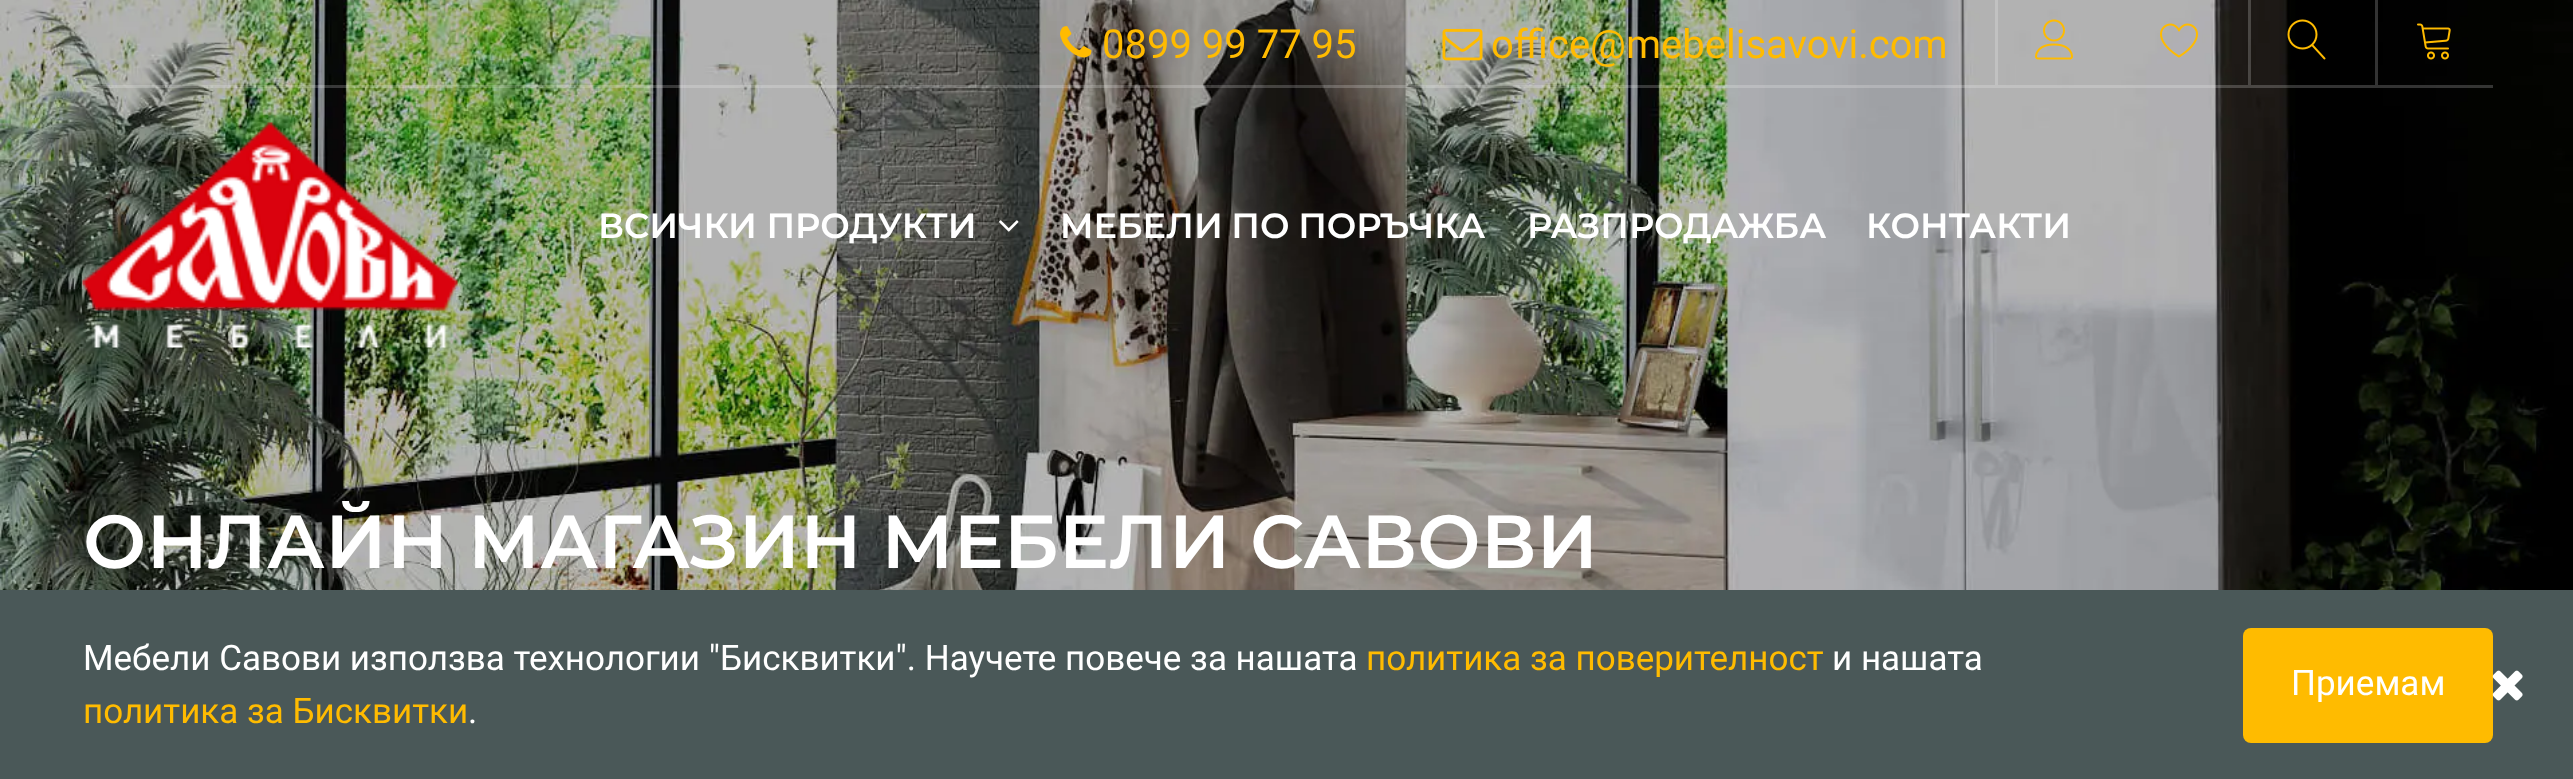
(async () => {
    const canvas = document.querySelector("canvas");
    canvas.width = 2573;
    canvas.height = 779;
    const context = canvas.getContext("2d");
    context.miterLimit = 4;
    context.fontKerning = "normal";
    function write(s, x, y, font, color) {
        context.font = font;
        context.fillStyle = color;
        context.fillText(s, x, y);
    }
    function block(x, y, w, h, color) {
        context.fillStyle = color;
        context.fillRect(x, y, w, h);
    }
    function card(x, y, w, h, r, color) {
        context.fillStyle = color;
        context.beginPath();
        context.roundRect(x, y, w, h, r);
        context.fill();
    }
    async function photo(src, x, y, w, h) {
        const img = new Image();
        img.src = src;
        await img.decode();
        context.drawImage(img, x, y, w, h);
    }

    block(0, 0, 2573, 779, "rgb(255, 255, 255)");
    await photo("media/9.png", 0, 0, 2573, 590);
    block(83, 85, 2410, 3, "rgba(255, 255, 255, 0.2)");
    await photo("media/1.png", 1060, 26, 32, 32);
    write("0899 99 77 95", 1102, 58, "40px Roboto", "rgb(255, 187, 0)");
    await photo("media/2.png", 1442, 28, 41, 33);
    write("office@mebelisavovi.com", 1491, 58, "40px Roboto", "rgb(255, 187, 0)");
    block(1995, 0, 3, 85, "rgb(193, 193, 193)");
    await photo("media/3.png", 2035, 19, 38, 41);
    await photo("media/4.png", 2160, 23, 38, 35);
    block(2248, 0, 3, 85, "rgba(255, 255, 255, 0.2)");
    await photo("media/5.png", 2287, 19, 39, 41);
    block(2375, 0, 3, 85, "rgb(51, 51, 51)");
    await photo("media/6.png", 2417, 23, 34, 37);
    await photo("media/7.png", 82, 122, 376, 226);
    write("ВСИЧКИ ПРОДУКТИ", 598, 238, "600 35px Montserrat", "rgb(255, 255, 255)");
    await photo("media/8.png", 999, 220, 20, 12);
    context.wordSpacing = "-1px";
    write("MЕБЕЛИ ПО ПОРЪЧКА", 1060, 238, "600 35px Montserrat", "rgb(255, 255, 255)");
    context.wordSpacing = "0px";
    write("РАЗПРОДАЖБА", 1527, 238, "600 35px Montserrat", "rgb(255, 255, 255)");
    write("КОНТАКТИ", 1866, 238, "600 35px Montserrat", "rgb(255, 255, 255)");
    context.wordSpacing = "-1px";
    write("ОНЛАЙН МАГАЗИН МЕБЕЛИ САВОВИ", 83, 568, "600 75px Montserrat", "rgb(255, 255, 255)");
    block(0, 590, 2573, 189, "rgb(74, 88, 88)");
    context.wordSpacing = "0px";
    write("Мебели Савови използва технологии \"Бисквитки\". Научете повече за нашата", 83, 670, "35px Roboto", "rgb(255, 255, 255)");
    write("политика за поверителност", 1366, 670, "35px Roboto", "rgb(255, 187, 0)");
    write("и нашата", 1832, 670, "35px Roboto", "rgb(255, 255, 255)");
    write("политика за Бисквитки", 83, 723, "35px Roboto", "rgb(255, 187, 0)");
    write(".", 468, 723, "35px Roboto", "rgb(255, 255, 255)");
    card(2243, 628, 250, 115, 8, "rgb(255, 187, 0)");
    write("Приемам", 2291, 695, "35px Roboto", "rgb(255, 255, 255)");
    await photo("media/10.png", 2492, 670, 31, 31);
})();
